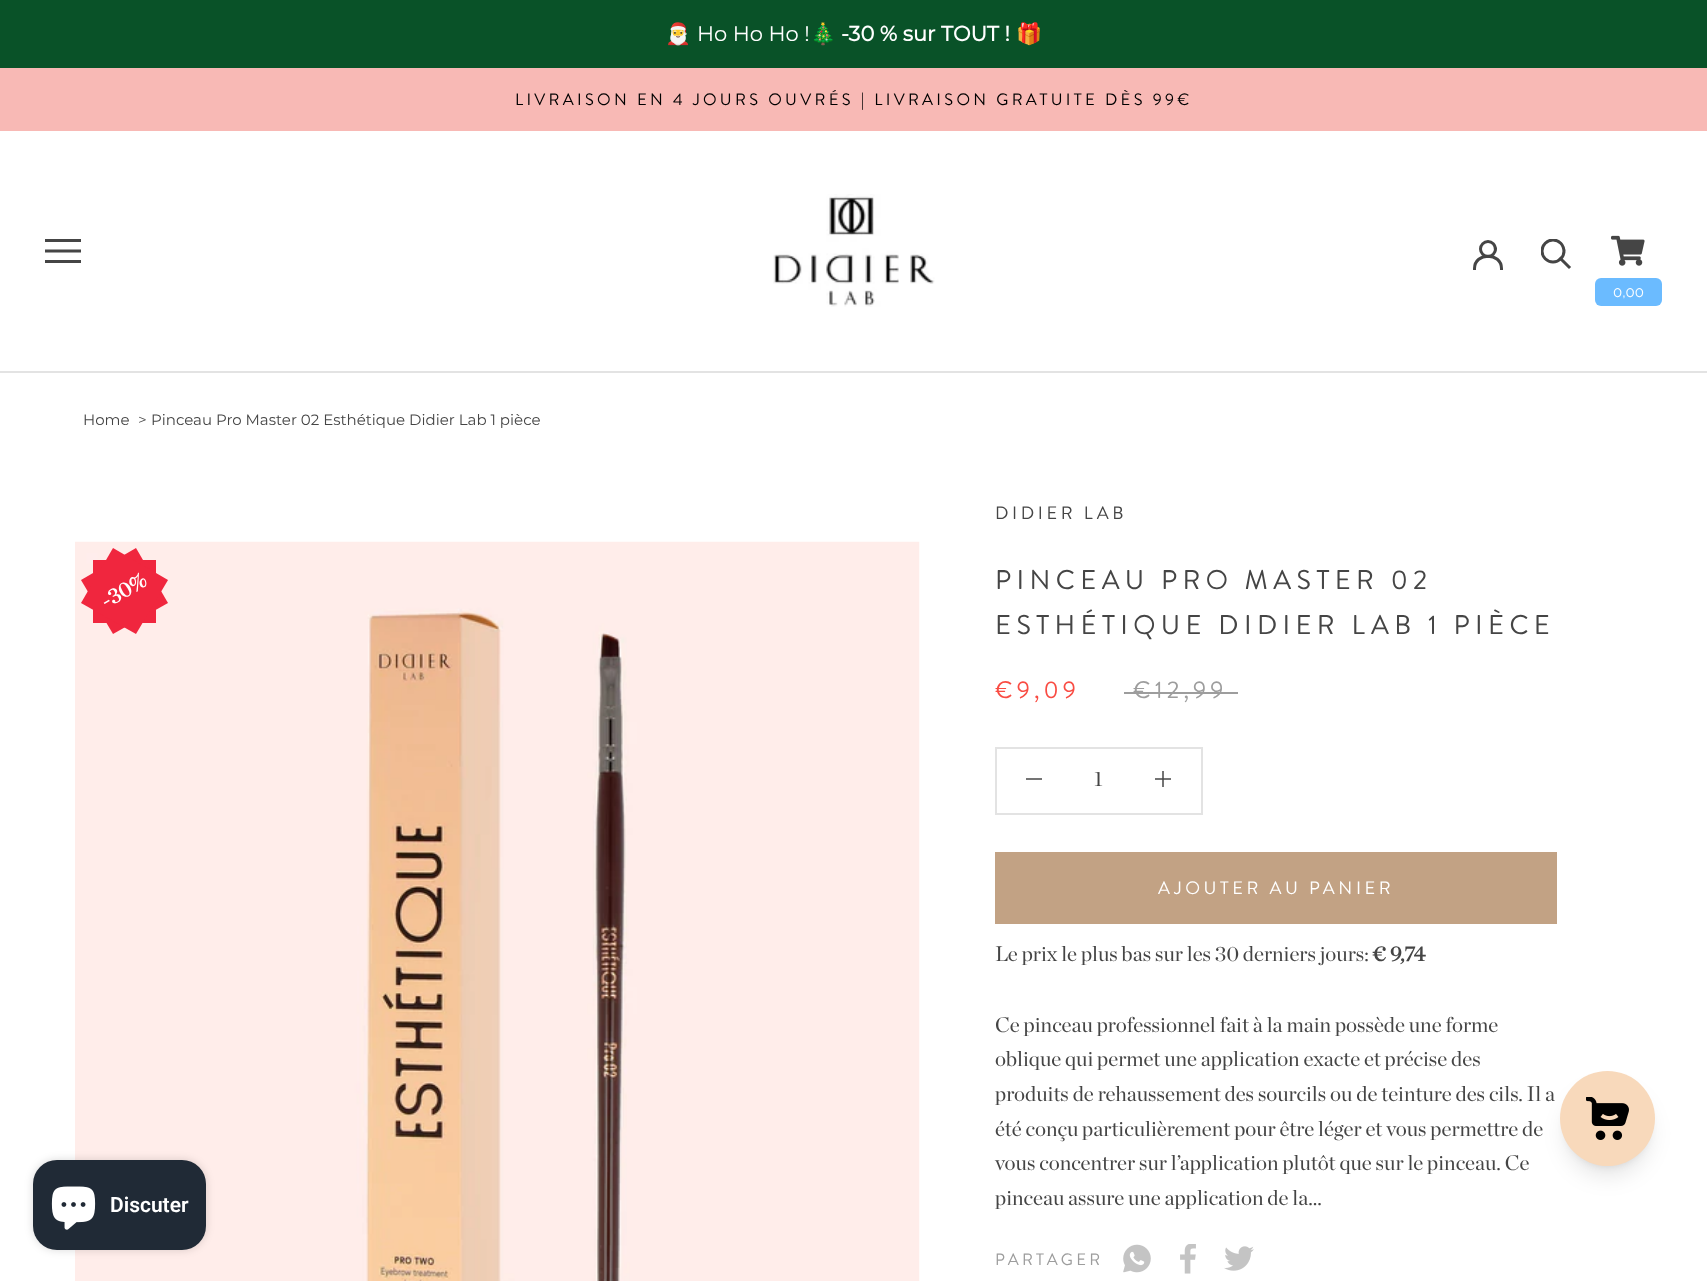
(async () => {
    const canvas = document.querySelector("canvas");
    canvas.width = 1707;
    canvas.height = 1281;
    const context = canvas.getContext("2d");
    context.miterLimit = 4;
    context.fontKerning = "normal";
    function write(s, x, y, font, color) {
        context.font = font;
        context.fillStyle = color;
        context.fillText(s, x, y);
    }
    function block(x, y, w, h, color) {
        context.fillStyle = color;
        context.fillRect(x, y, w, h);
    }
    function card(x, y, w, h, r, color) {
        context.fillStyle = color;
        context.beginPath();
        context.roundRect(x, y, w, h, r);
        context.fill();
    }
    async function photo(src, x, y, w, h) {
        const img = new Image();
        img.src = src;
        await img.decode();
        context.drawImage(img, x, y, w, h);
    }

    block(0, 0, 1707, 1281, "rgb(255, 255, 255)");
    block(1155, 778, 16, 2, "rgb(116, 116, 116)");
    block(0, 0, 1707, 68, "rgb(9, 82, 40)");
    write("🎅", 665, 41, "21px Noto Color Emoji", "rgb(255, 255, 255)");
    write("Ho Ho Ho !", 697, 41, "100 21px Montserrat", "rgb(255, 255, 255)");
    write("🎄", 810, 41, "21px Noto Color Emoji", "rgb(255, 255, 255)");
    write("-30 % sur TOUT !", 841, 41, "bold 21px Montserrat", "rgb(255, 255, 255)");
    write("🎁", 1016, 41, "bold 21px Noto Color Emoji", "rgb(255, 255, 255)");
    block(0, 68, 1707, 63, "rgb(248, 185, 181)");
    context.letterSpacing = "3.3px";
    write("LIVRAISON EN 4 JOURS OUVRÉS | LIVRAISON GRATUITE DÈS 99€", 515, 105, "16.5px Brandon Grotesque", "rgb(0, 0, 0)");
    block(0, 371, 1707, 2, "rgb(227, 227, 227)");
    context.fillStyle = "rgb(69, 69, 69)";
    context.beginPath();
    context.moveTo(45, 263);
    context.lineTo(45, 260);
    context.lineTo(81, 260);
    context.lineTo(81, 263);
    context.closePath();
    context.moveTo(45, 249.5);
    context.lineTo(81, 249.5);
    context.lineTo(81, 252.5);
    context.lineTo(45, 252.5);
    context.closePath();
    context.moveTo(45, 239);
    context.lineTo(81, 239);
    context.lineTo(81, 242);
    context.lineTo(45, 242);
    context.closePath();
    context.fill();
    await photo("media/1.png", 773, 194, 162, 113);
    context.beginPath();
    context.moveTo(1474.5, 268.5);
    context.bezierCurveTo(1474.5, 252, 1501.5, 252, 1501.5, 268.5);
    context.strokeStyle = "rgb(69, 69, 69)";
    context.lineWidth = 3;
    context.lineCap = "square";
    context.stroke();
    context.beginPath();
    context.arc(1488, 249, 7.5, 0, Math.PI * 2);
    context.stroke();
    context.beginPath();
    context.moveTo(1569, 267);
    context.lineTo(1560.5, 258.5);
    context.stroke();
    context.save();
    context.beginPath();
    context.rect(1541, 239, 31, 31);
    context.clip();
    context.beginPath();
    context.arc(1553, 251, 11, 0, Math.PI * 2);
    context.stroke();
    context.restore();
    await photo("media/2.png", 1611, 235, 34, 31);
    card(1595, 278, 67, 28, 6, "rgb(107, 187, 255)");
    context.letterSpacing = "0px";
    write("0,00", 1613, 297, "15px Raleway", "rgb(255, 255, 255)");
    write("Home", 83, 425, "100 15px Montserrat", "rgb(69, 69, 69)");
    write(">", 138, 425, "100 15px Montserrat", "rgb(69, 69, 69)");
    write("Pinceau Pro Master 02 Esthétique Didier Lab 1 pièce", 151, 425, "100 15px Montserrat", "rgb(69, 69, 69)");
    await photo("media/3.png", 75, 541, 845, 740);
    context.fillStyle = "rgb(240, 38, 62)";
    context.beginPath();
    context.moveTo(81, 580);
    context.lineTo(136, 548);
    context.lineTo(168, 603);
    context.lineTo(113, 634);
    context.closePath();
    context.fill();
    block(93, 560, 63, 63, "rgb(240, 38, 62)");
    context.beginPath();
    context.moveTo(81, 603);
    context.lineTo(113, 548);
    context.lineTo(168, 580);
    context.lineTo(136, 634);
    context.closePath();
    context.fill();
    context.font = "bold 21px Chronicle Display";
    context.fillStyle = "rgb(255, 255, 255)";
    context.save();
    context.translate(106, 609);
    context.rotate(-30 * Math.PI / 180);
    context.fillText("-", 0, 0);
    context.restore();
    context.save();
    context.translate(113, 605);
    context.rotate(-30 * Math.PI / 180);
    context.fillText("30%", 0, 0);
    context.restore();
    context.letterSpacing = "3.6px";
    write("DIDIER LAB", 995, 519, "18px Brandon Grotesque", "rgb(69, 69, 69)");
    context.letterSpacing = "5.4px";
    write("PINCEAU PRO MASTER 02", 995, 589, "27px Brandon Grotesque", "rgb(69, 69, 69)");
    write("ESTHÉTIQUE DIDIER LAB 1 PIÈCE", 995, 634, "27px Brandon Grotesque", "rgb(69, 69, 69)");
    context.letterSpacing = "4.25px";
    write("€9,09", 995, 698, "24px Brandon Grotesque", "rgb(249, 76, 67)");
    write("€12,99", 1133, 698, "24px Brandon Grotesque", "rgb(157, 157, 157)");
    block(1124, 692, 114, 2, "rgb(157, 157, 157)");
    context.strokeStyle = "rgb(227, 227, 227)";
    context.lineWidth = 2;
    context.strokeRect(996, 748, 206, 66);
    block(1026, 778, 16, 2, "rgb(116, 116, 116)");
    context.letterSpacing = "0px";
    write("1", 1094, 786, "21px Chronicle Display", "rgb(69, 69, 69)");
    block(1162, 771, 2, 16, "rgb(116, 116, 116)");
    block(1162, 778, 2, 2, "rgb(81, 81, 81)");
    context.strokeStyle = "rgb(194, 162, 132)";
    context.strokeRect(996, 853, 560, 70);
    block(997, 854, 558, 68, "rgb(194, 162, 132)");
    context.letterSpacing = "3.6px";
    write("AJOUTER AU PANIER", 1158, 894, "18px Brandon Grotesque", "rgb(255, 255, 255)");
    context.letterSpacing = "0px";
    write("Le prix le plus bas sur les 30 derniers jours:", 995, 961, "21px Chronicle Display", "rgb(69, 69, 69)");
    write("€ 9,74", 1372, 961, "bold 21px Chronicle Display", "rgb(69, 69, 69)");
    write("Ce pinceau professionnel fait à la main possède une forme", 995, 1032, "21px Chronicle Display", "rgb(69, 69, 69)");
    write("oblique qui permet une application exacte et précise des", 995, 1066, "21px Chronicle Display", "rgb(69, 69, 69)");
    write("produits de rehaussement des sourcils ou de teinture des cils. Il a", 995, 1101, "21px Chronicle Display", "rgb(69, 69, 69)");
    write("été conçu particulièrement pour être léger et vous permettre de", 995, 1136, "21px Chronicle Display", "rgb(69, 69, 69)");
    write("vous concentrer sur l’application plutôt que sur le pinceau. Ce", 995, 1170, "21px Chronicle Display", "rgb(69, 69, 69)");
    write("pinceau assure une application de la...", 995, 1205, "21px Chronicle Display", "rgb(69, 69, 69)");
    context.letterSpacing = "3.3px";
    write("PARTAGER", 995, 1265, "16.5px Brandon Grotesque", "rgb(157, 157, 157)");
    await photo("media/4.png", 1123, 1244, 28, 29);
    await photo("media/5.png", 1180, 1244, 16, 30);
    await photo("media/6.png", 1224, 1246, 30, 25);
    context.fillStyle = "rgba(0, 0, 0, 0.15)";
    context.filter = "blur(4px)";
    context.beginPath();
    context.roundRect(33, 1160, 173, 90, 24);
    context.fill();
    context.filter = "none";
    card(33, 1160, 173, 90, 24, "rgb(32, 42, 54)");
    await photo("media/7.png", 51, 1186, 45, 44);
    context.letterSpacing = "0px";
    write("Discuter", 110, 1212, "600 21px Roboto", "rgb(255, 255, 255)");
    context.fillStyle = "rgba(0, 0, 0, 0.1)";
    context.filter = "blur(4.5px)";
    context.beginPath();
    context.roundRect(1566, 1083, 83, 83, 41.5);
    context.fill();
    context.filter = "none";
    context.filter = "blur(11px)";
    context.beginPath();
    context.roundRect(1565, 1091, 85, 85, 42.5);
    context.fill();
    context.filter = "none";
    context.fillStyle = "rgb(248, 217, 187)";
    context.beginPath();
    context.arc(1607.5, 1118.5, 47.5, 0, Math.PI * 2);
    context.fill();
    await photo("media/8.png", 1586, 1097, 43, 43);
})();
